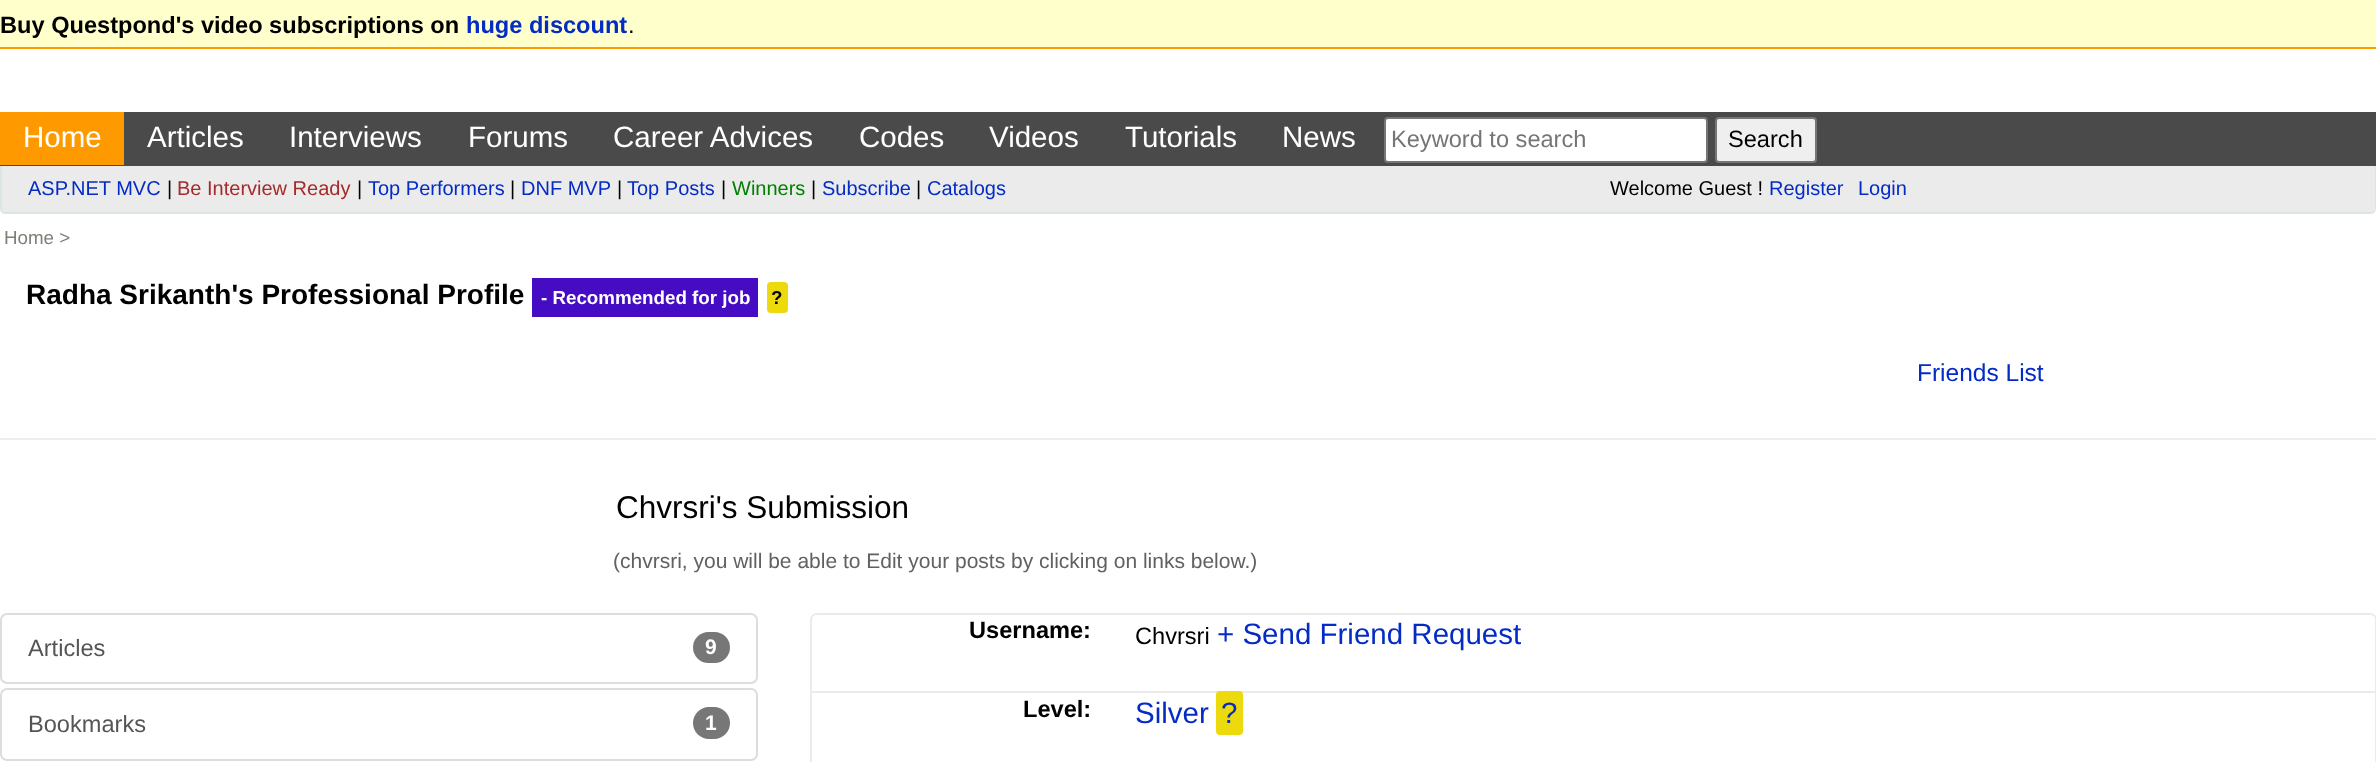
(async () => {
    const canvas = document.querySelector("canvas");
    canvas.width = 2376;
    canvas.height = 762;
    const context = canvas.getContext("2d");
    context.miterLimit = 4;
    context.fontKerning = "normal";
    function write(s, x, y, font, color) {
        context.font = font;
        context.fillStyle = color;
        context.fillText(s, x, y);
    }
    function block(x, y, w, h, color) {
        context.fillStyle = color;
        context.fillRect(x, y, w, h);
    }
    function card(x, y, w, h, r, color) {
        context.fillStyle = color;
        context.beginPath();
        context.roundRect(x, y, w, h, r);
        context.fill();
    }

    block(0, 0, 2376, 762, "rgb(255, 255, 255)");
    block(0, 0, 2376, 47, "rgb(255, 255, 204)");
    block(0, 47, 2376, 2, "rgb(255, 153, 0)");
    write("Buy Questpond's video subscriptions on", 0, 33, "bold 23.6px Liberation Sans", "rgb(0, 0, 0)");
    write("huge discount", 466, 33, "bold 23.6px Liberation Sans", "rgb(4, 43, 196)");
    write(".", 628, 33, "23.6px Liberation Sans", "rgb(0, 0, 0)");
    block(0, 112, 2376, 54, "rgb(74, 74, 74)");
    block(0, 112, 124, 53, "rgb(255, 153, 0)");
    write("Home", 23, 147, "29.5px Liberation Sans", "rgb(255, 255, 255)");
    write("Articles", 147, 147, "29.5px Liberation Sans", "rgb(255, 255, 255)");
    write("Interviews", 289, 147, "29.5px Liberation Sans", "rgb(255, 255, 255)");
    write("Forums", 468, 147, "29.5px Liberation Sans", "rgb(255, 255, 255)");
    write("Career Advices", 613, 147, "29.5px Liberation Sans", "rgb(255, 255, 255)");
    write("Codes", 859, 147, "29.5px Liberation Sans", "rgb(255, 255, 255)");
    write("Videos", 989, 147, "29.5px Liberation Sans", "rgb(255, 255, 255)");
    write("Tutorials", 1125, 147, "29.5px Liberation Sans", "rgb(255, 255, 255)");
    write("News", 1282, 147, "29.5px Liberation Sans", "rgb(255, 255, 255)");
    context.beginPath();
    context.roundRect(1385, 118, 322, 44, 3);
    context.fill();
    context.strokeStyle = "rgb(118, 118, 118)";
    context.lineWidth = 2;
    context.stroke();
    write("Keyword to search", 1391, 147, "23.6px Liberation Sans", "rgb(117, 117, 117)");
    context.fillStyle = "rgb(239, 239, 239)";
    context.beginPath();
    context.roundRect(1716, 118, 100, 44, 3);
    context.fill();
    context.stroke();
    write("Search", 1728, 147, "23.6px Liberation Sans", "rgb(0, 0, 0)");
    context.fillStyle = "rgb(235, 235, 235)";
    context.beginPath();
    context.roundRect(2, 166, 2373, 46, [0, 0, 4, 4]);
    context.fill();
    context.fillStyle = "rgb(219, 229, 230)";
    context.beginPath();
    context.moveTo(0, 166);
    context.lineTo(2376, 166);
    context.lineTo(2376, 208);
    context.bezierCurveTo(2376, 211, 2374, 214, 2371, 214);
    context.lineTo(5, 214);
    context.bezierCurveTo(2, 214, 0, 211, 0, 208);
    context.closePath();
    context.moveTo(2, 166);
    context.lineTo(2375, 166);
    context.lineTo(2375, 208);
    context.bezierCurveTo(2375, 210, 2373, 212, 2371, 212);
    context.lineTo(5, 212);
    context.bezierCurveTo(3, 212, 2, 210, 2, 208);
    context.closePath();
    context.fill("evenodd");
    write("ASP.NET MVC", 28, 195, "20px Liberation Sans", "rgb(4, 43, 196)");
    write("|", 167, 195, "20px Liberation Sans", "rgb(0, 0, 0)");
    write("Be Interview Ready", 177, 195, "20px Liberation Sans", "rgb(165, 42, 42)");
    write("|", 357, 195, "20px Liberation Sans", "rgb(0, 0, 0)");
    write("Top Performers", 368, 195, "20px Liberation Sans", "rgb(4, 43, 196)");
    write("|", 510, 195, "20px Liberation Sans", "rgb(0, 0, 0)");
    write("DNF MVP", 521, 195, "20px Liberation Sans", "rgb(4, 43, 196)");
    write("|", 617, 195, "20px Liberation Sans", "rgb(0, 0, 0)");
    write("Top Posts", 627, 195, "20px Liberation Sans", "rgb(4, 43, 196)");
    write("|", 721, 195, "20px Liberation Sans", "rgb(0, 0, 0)");
    write("Winners", 732, 195, "20px Liberation Sans", "rgb(0, 128, 0)");
    write("|", 811, 195, "20px Liberation Sans", "rgb(0, 0, 0)");
    write("Subscribe", 822, 195, "20px Liberation Sans", "rgb(4, 43, 196)");
    write("|", 916, 195, "20px Liberation Sans", "rgb(0, 0, 0)");
    write("Catalogs", 927, 195, "20px Liberation Sans", "rgb(4, 43, 196)");
    write("Welcome Guest !", 1610, 195, "20px Liberation Sans", "rgb(0, 0, 0)");
    write("Register", 1769, 195, "20px Liberation Sans", "rgb(4, 43, 196)");
    write("Login", 1858, 195, "20px Liberation Sans", "rgb(4, 43, 196)");
    write("Home >", 4, 244, "18.75px Liberation Sans", "rgb(126, 126, 118)");
    write("Radha Srikanth's Professional Profile", 26, 304, "bold 28px Liberation Sans", "rgb(0, 0, 0)");
    block(532, 278, 226, 39, "rgb(70, 12, 196)");
    write("- Recommended for job", 541, 304, "bold 18.75px Liberation Sans", "rgb(255, 255, 255)");
    card(767, 282, 21, 31, 4, "rgb(237, 218, 12)");
    write("?", 771, 304, "bold 18.75px Liberation Sans", "rgb(0, 0, 0)");
    write("Friends List", 1917, 381, "24.5px Liberation Sans", "rgb(4, 43, 196)");
    block(0, 438, 2376, 2, "rgb(238, 238, 238)");
    write("Chvrsri's Submission", 616, 518, "31.5px Liberation Sans", "rgb(0, 0, 0)");
    write("(chvrsri, you will be able to Edit your posts by clicking on links below.)", 613, 568, "21px Liberation Sans", "rgb(96, 97, 98)");
    context.beginPath();
    context.roundRect(1, 614, 756, 69, 6);
    context.strokeStyle = "rgb(221, 221, 221)";
    context.stroke();
    write("Articles", 28, 656, "23.6px Liberation Sans", "rgb(85, 85, 85)");
    card(693, 632, 37, 31, 15.5, "rgb(119, 119, 119)");
    write("9", 705, 654, "bold 21px Liberation Sans", "rgb(255, 255, 255)");
    context.beginPath();
    context.roundRect(1, 689, 756, 71, 6);
    context.stroke();
    write("Bookmarks", 28, 732, "23.6px Liberation Sans", "rgb(85, 85, 85)");
    card(693, 707, 37, 32, 16, "rgb(119, 119, 119)");
    write("1", 705, 730, "bold 21px Liberation Sans", "rgb(255, 255, 255)");
    context.beginPath();
    context.moveTo(817, 614);
    context.lineTo(2370, 614);
    context.bezierCurveTo(2373.5, 614, 2376, 616.5, 2376, 620);
    context.lineTo(2376, 692);
    context.lineTo(811, 692);
    context.lineTo(811, 620);
    context.bezierCurveTo(811, 616.5, 813.5, 614, 817, 614);
    context.closePath();
    context.strokeStyle = "rgb(235, 235, 235)";
    context.stroke();
    write("Username:", 969, 638, "bold 23.6px Liberation Sans", "rgb(0, 0, 0)");
    write("Chvrsri", 1135, 644, "23.6px Liberation Sans", "rgb(0, 0, 0)");
    write("+ Send Friend Request", 1217, 644, "29.5px Liberation Sans", "rgb(4, 43, 196)");
    context.strokeRect(811, 692, 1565, 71);
    write("Level:", 1023, 717, "bold 23.6px Liberation Sans", "rgb(0, 0, 0)");
    write("Silver", 1135, 723, "29.5px Liberation Sans", "rgb(4, 43, 196)");
    card(1216, 691, 27, 44, 4, "rgb(237, 218, 12)");
    write("?", 1221, 723, "29.5px Liberation Sans", "rgb(4, 43, 196)");
})();
